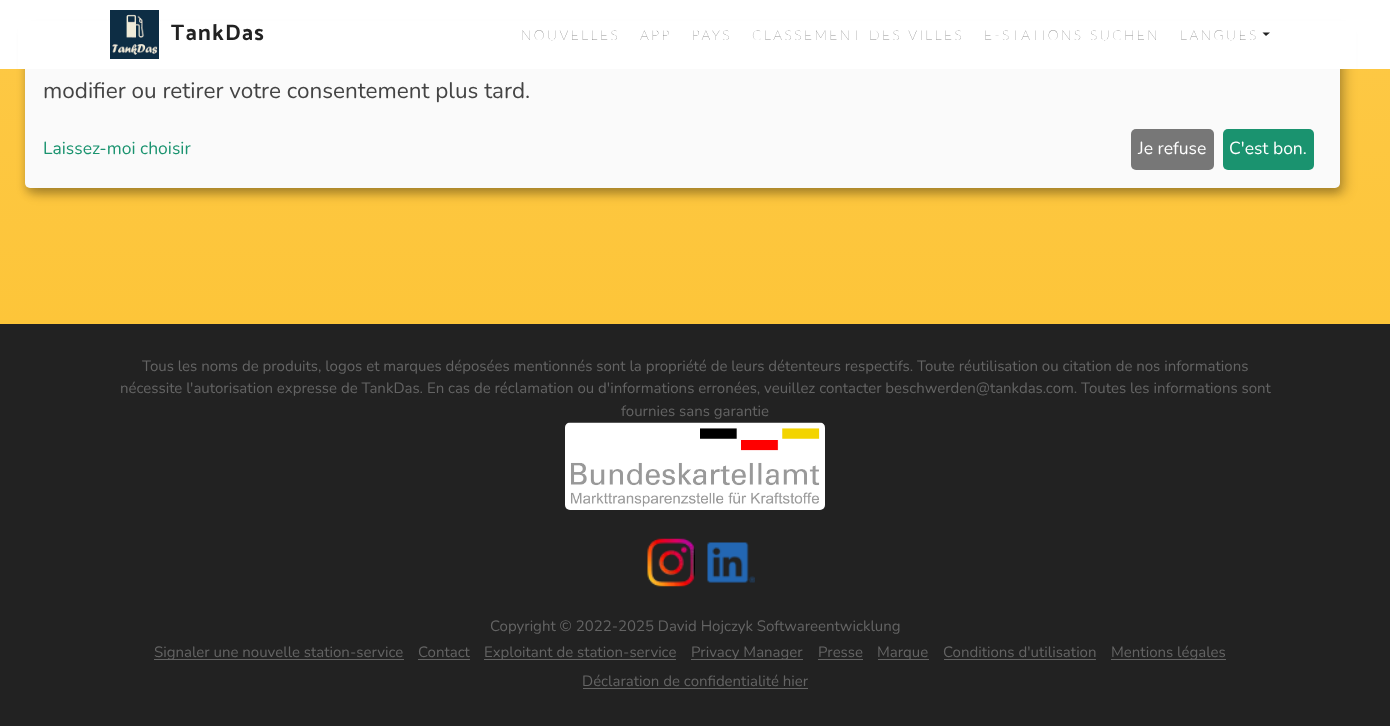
(async () => {
    const canvas = document.querySelector("canvas");
    canvas.width = 1390;
    canvas.height = 726;
    const context = canvas.getContext("2d");
    context.miterLimit = 4;
    context.fontKerning = "normal";
    function write(s, x, y, font, color) {
        context.font = font;
        context.fillStyle = color;
        context.fillText(s, x, y);
    }
    function block(x, y, w, h, color) {
        context.fillStyle = color;
        context.fillRect(x, y, w, h);
    }
    function card(x, y, w, h, r, color) {
        context.fillStyle = color;
        context.beginPath();
        context.roundRect(x, y, w, h, r);
        context.fill();
    }
    async function photo(src, x, y, w, h) {
        const img = new Image();
        img.src = src;
        await img.decode();
        context.drawImage(img, x, y, w, h);
    }
    let gradient;

    block(0, 0, 1390, 726, "rgb(255, 255, 255)");
    gradient = context.createLinearGradient(695, -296, 695, 324);
    gradient.addColorStop(0, "rgb(253, 204, 82)");
    gradient.addColorStop(1, "rgb(253, 197, 57)");
    context.fillStyle = gradient;
    context.fillRect(0, 69, 1390, 255);
    context.fillStyle = "rgba(0, 0, 0, 0.19)";
    context.filter = "blur(6px)";
    context.beginPath();
    context.roundRect(31, 31, 1315, 163, 5);
    context.fill();
    context.filter = "none";
    context.fillStyle = "rgba(0, 0, 0, 0.2)";
    context.filter = "blur(4px)";
    context.beginPath();
    context.roundRect(25, 30, 1315, 163, 5);
    context.fill();
    context.filter = "none";
    card(25, 25, 1315, 163, 5, "rgb(250, 250, 250)");
    block(18, 21, 1338, 48, "rgb(255, 255, 255)");
    await photo("media/1.png", 110, 10, 49, 49);
    context.letterSpacing = "1.25px";
    write("TankDas", 171, 40, "bold 22.5px Catamaran", "rgb(34, 34, 34)");
    context.letterSpacing = "2.5px";
    write("NOUVELLES", 521, 40, "200 13.75px Lato", "rgb(34, 34, 34)");
    write("APP", 640, 40, "200 13.75px Lato", "rgb(34, 34, 34)");
    write("PAYS", 692, 40, "200 13.75px Lato", "rgb(34, 34, 34)");
    write("CLASSEMENT DES VILLES", 752, 40, "200 13.75px Lato", "rgb(34, 34, 34)");
    write("E-STATIONS SUCHEN", 984, 40, "200 13.75px Lato", "rgb(34, 34, 34)");
    write("LANGUES", 1180, 40, "200 13.75px Lato", "rgb(34, 34, 34)");
    context.beginPath();
    context.moveTo(1262.5, 32.5);
    context.lineTo(1270, 32.5);
    context.lineTo(1266, 36);
    context.closePath();
    context.fill();
    context.letterSpacing = "0px";
    write("modifier ou retirer votre consentement plus tard.", 43, 98, "200 22.5px Nunito", "rgb(68, 68, 68)");
    write("Laissez-moi choisir", 43, 154, "200 17.5px Nunito", "rgb(26, 147, 111)");
    card(1131, 129, 83, 41, 5, "rgb(119, 119, 119)");
    write("Je refuse", 1138, 154, "200 17.5px Nunito", "rgb(255, 255, 255)");
    card(1223, 129, 91, 41, 5, "rgb(26, 147, 111)");
    write("C'est bon.", 1229, 154, "200 17.5px Nunito", "rgb(255, 255, 255)");
    block(0, 324, 1390, 402, "rgb(34, 34, 34)");
    write("Tous les noms de produits, logos et marques déposées mentionnés sont la propriété de leurs détenteurs respectifs. Toute réutilisation ou citation de nos informations", 142, 371, "200 15px Nunito", "rgb(100, 100, 100)");
    write("nécessite l'autorisation expresse de TankDas. En cas de réclamation ou d'informations erronées, veuillez contacter beschwerden@tankdas.com. Toutes les informations sont", 120, 393, "200 15px Nunito", "rgb(100, 100, 100)");
    write("fournies sans garantie", 621, 416, "200 15px Nunito", "rgb(100, 100, 100)");
    await photo("media/2.png", 565, 422, 260, 88);
    await photo("media/3.png", 647, 538, 48, 49);
    await photo("media/4.png", 707, 542, 48, 41);
    write("Copyright © 2022-2025 David Hojczyk Softwareentwicklung", 490, 631, "200 15px Nunito", "rgb(100, 100, 100)");
    block(154, 659, 250, 1, "rgb(100, 100, 100)");
    write("Signaler une nouvelle station-service", 154, 657, "200 15px Nunito", "rgb(100, 100, 100)");
    write("Contact", 418, 657, "200 15px Nunito", "rgb(100, 100, 100)");
    block(418, 659, 52, 1, "rgb(100, 100, 100)");
    block(484, 659, 192, 1, "rgb(100, 100, 100)");
    write("Exploitant de station-service", 484, 657, "200 15px Nunito", "rgb(100, 100, 100)");
    block(691, 659, 112, 1, "rgb(100, 100, 100)");
    write("Privacy Manager", 691, 657, "200 15px Nunito", "rgb(100, 100, 100)");
    write("Presse", 818, 657, "200 15px Nunito", "rgb(100, 100, 100)");
    block(818, 659, 45, 1, "rgb(100, 100, 100)");
    block(878, 659, 51, 1, "rgb(100, 100, 100)");
    write("Marque", 877, 657, "200 15px Nunito", "rgb(100, 100, 100)");
    write("Conditions d'utilisation", 943, 657, "200 15px Nunito", "rgb(100, 100, 100)");
    block(944, 659, 152, 1, "rgb(100, 100, 100)");
    block(1111, 659, 115, 1, "rgb(100, 100, 100)");
    write("Mentions légales", 1111, 657, "200 15px Nunito", "rgb(100, 100, 100)");
    write("Déclaration de confidentialité hier", 582, 686, "200 15px Nunito", "rgb(100, 100, 100)");
    block(583, 688, 225, 1, "rgb(100, 100, 100)");
})();
